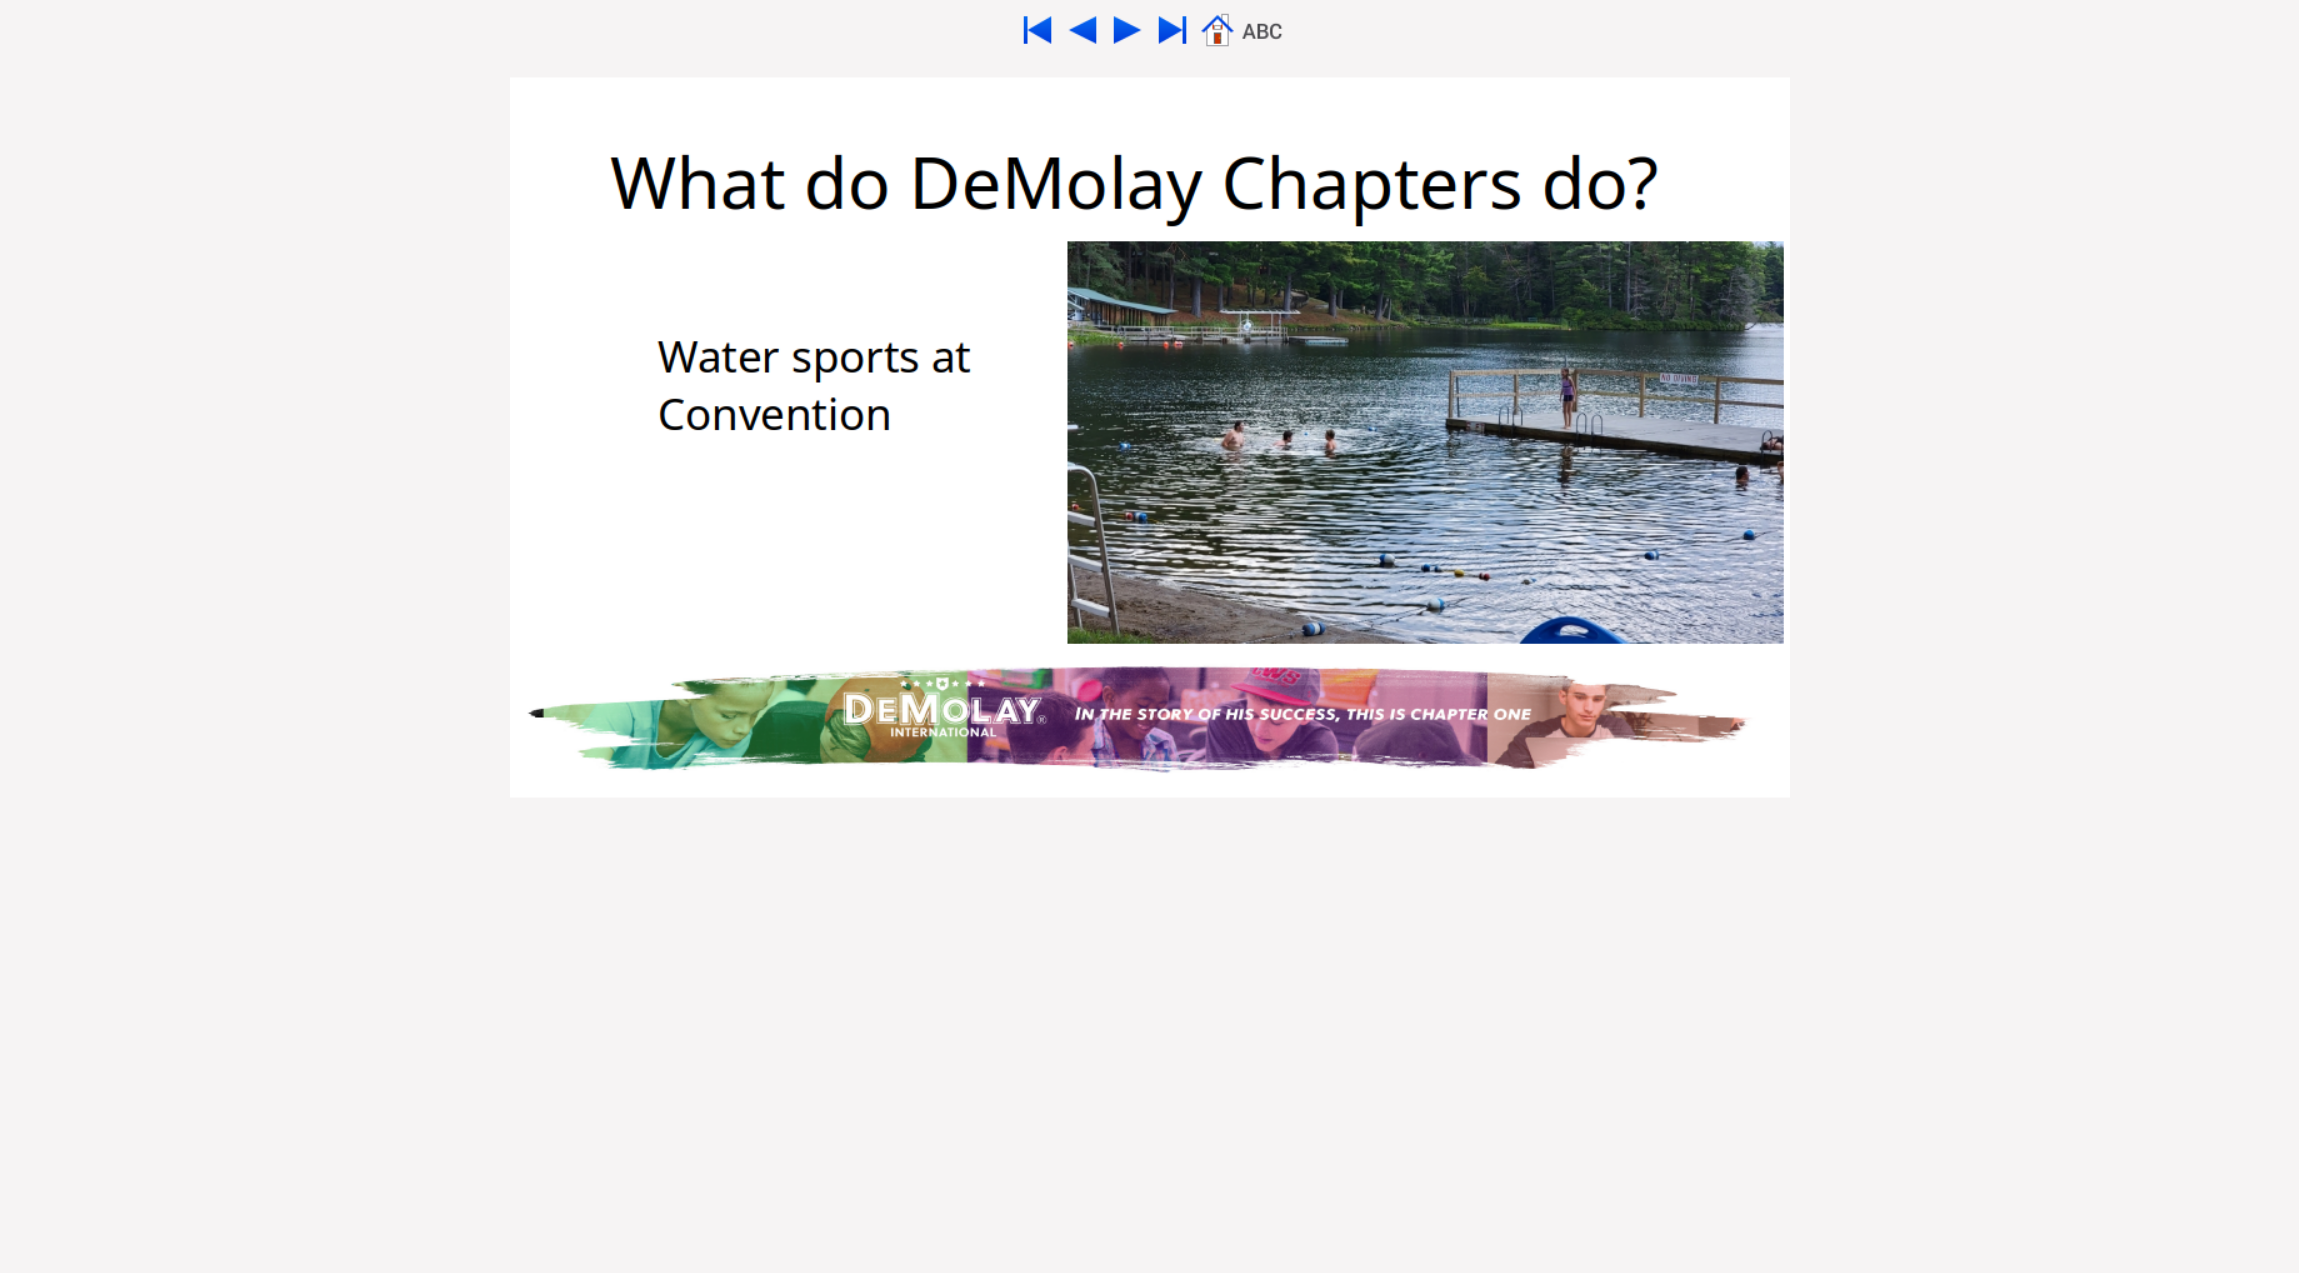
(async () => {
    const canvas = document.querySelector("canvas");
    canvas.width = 2299;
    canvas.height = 1273;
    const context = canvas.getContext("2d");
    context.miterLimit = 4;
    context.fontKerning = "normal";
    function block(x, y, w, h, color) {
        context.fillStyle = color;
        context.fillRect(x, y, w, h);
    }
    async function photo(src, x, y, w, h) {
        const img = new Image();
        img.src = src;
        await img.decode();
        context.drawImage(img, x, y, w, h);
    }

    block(0, 0, 2299, 1273, "rgb(246, 244, 244)");
    await photo("media/1.png", 1023, 16, 29, 28);
    await photo("media/2.png", 1068, 16, 29, 28);
    await photo("media/3.png", 1113, 16, 29, 28);
    await photo("media/4.png", 1158, 16, 29, 28);
    await photo("media/5.png", 1201, 13, 33, 34);
    await photo("media/6.png", 1242, 22, 41, 18);
    await photo("media/7.png", 510, 77, 1280, 721);
})();
